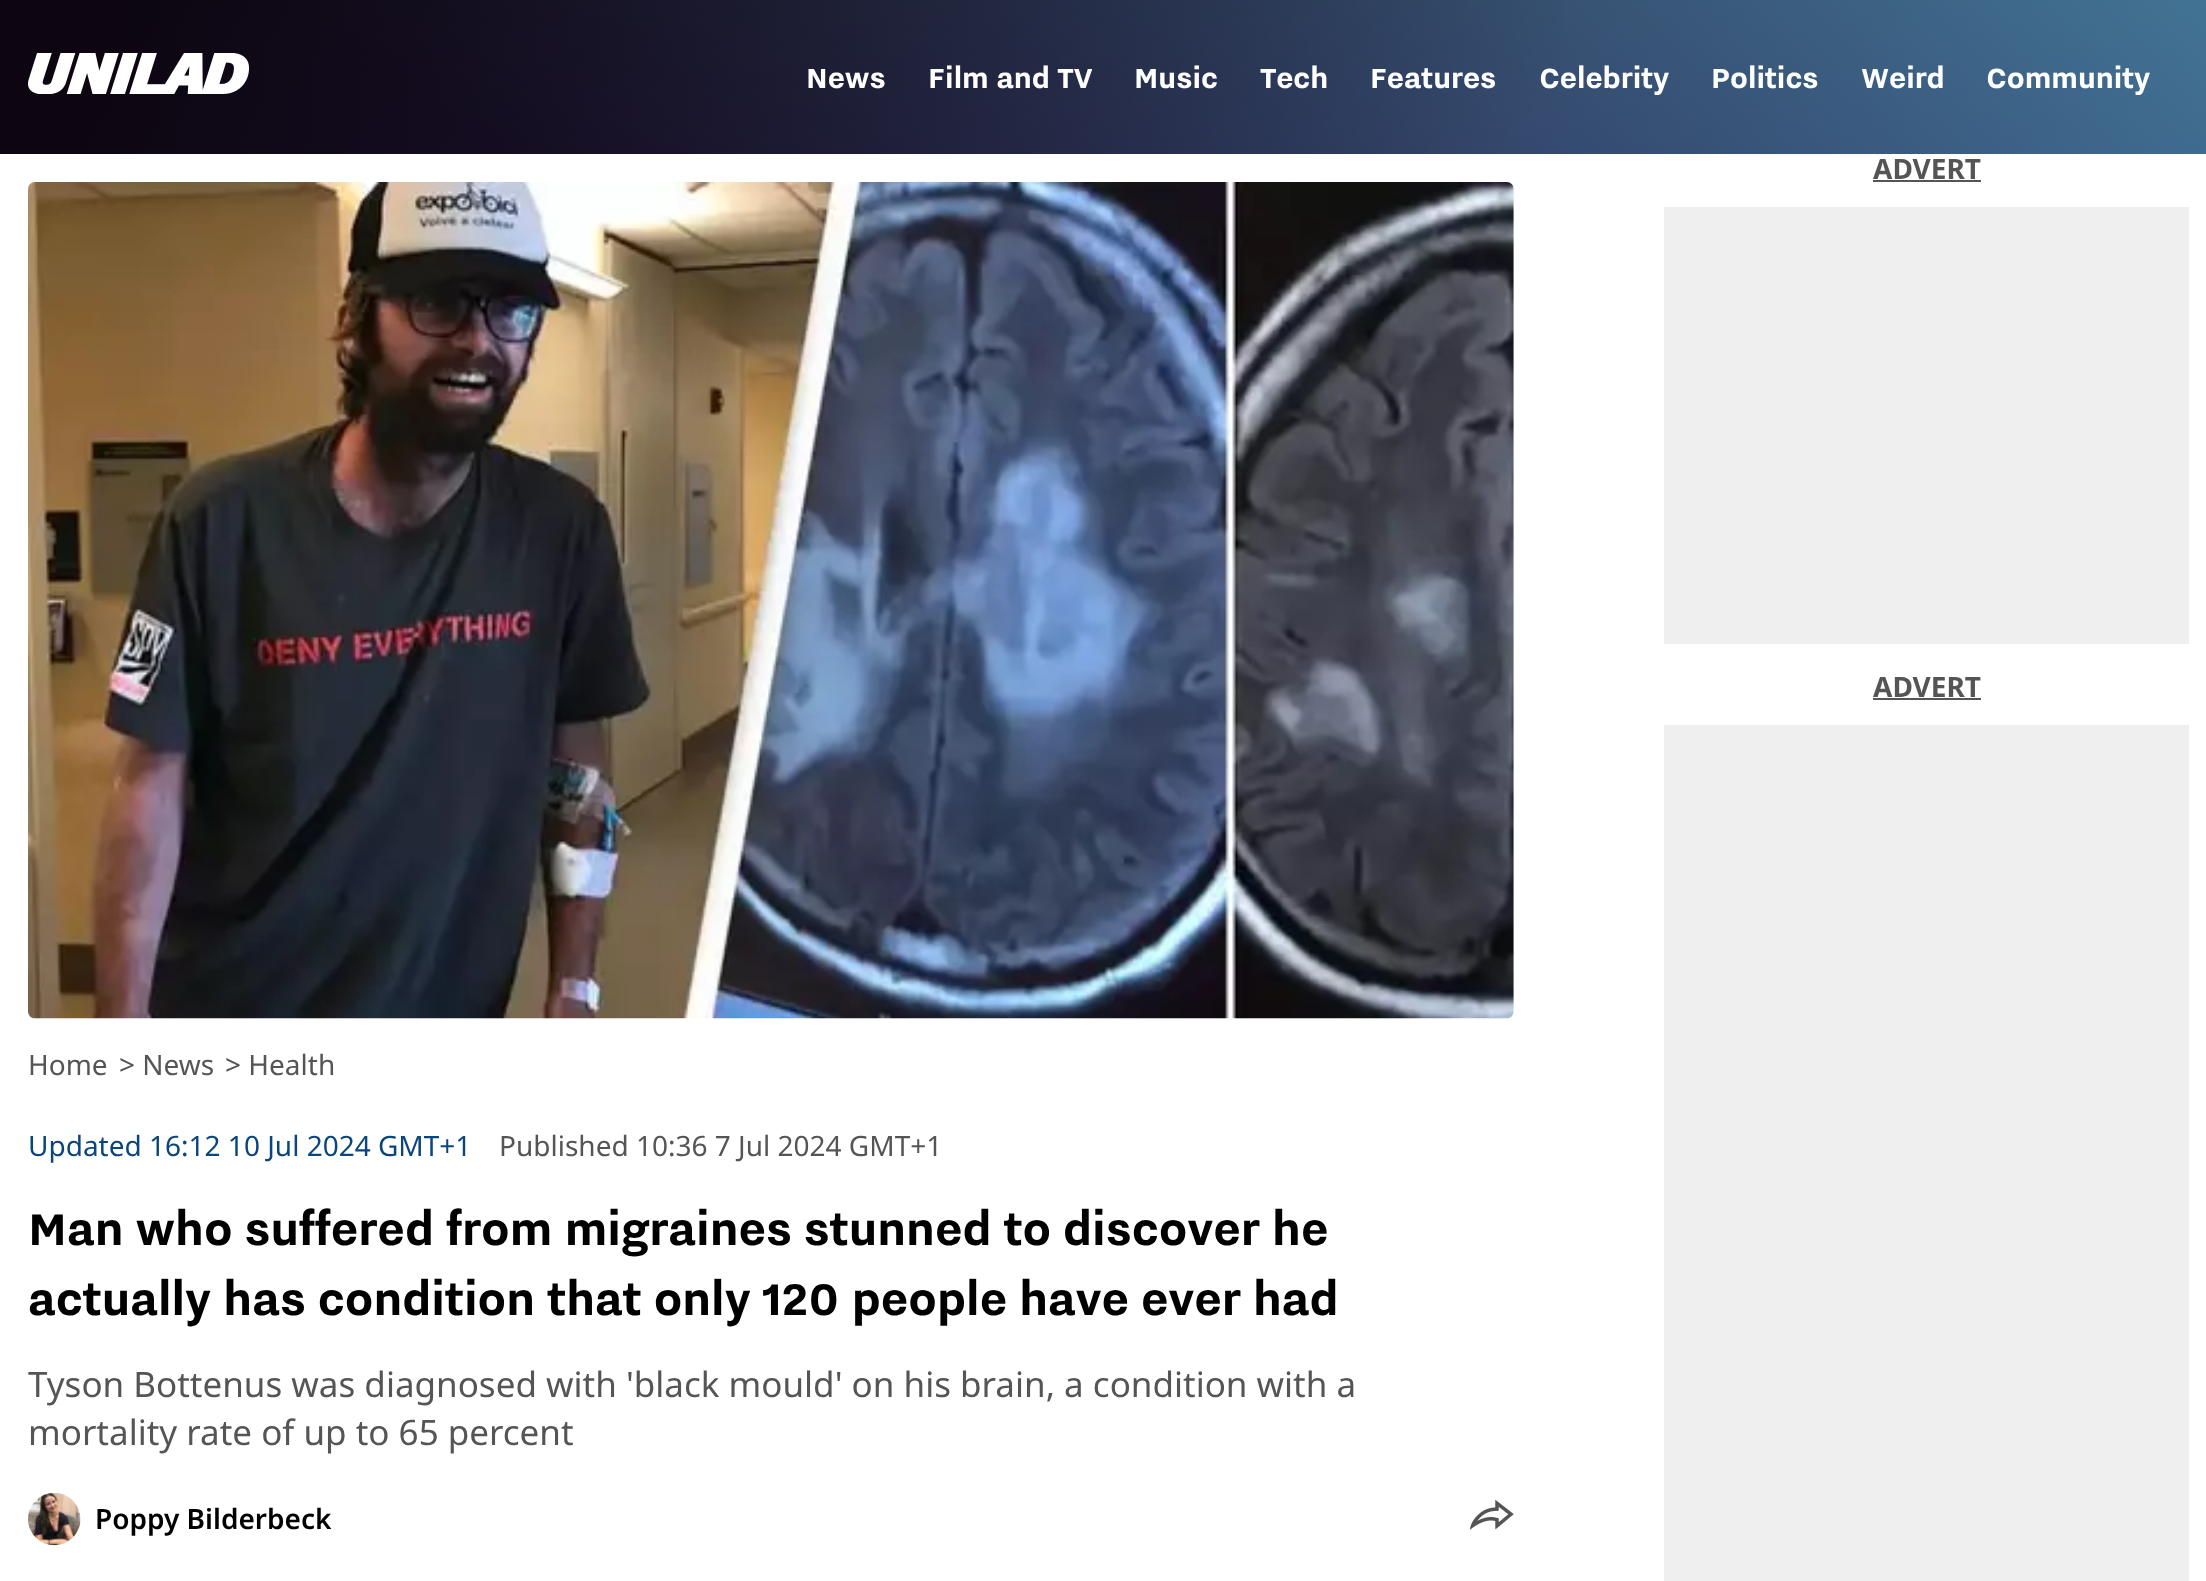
(async () => {
    const canvas = document.querySelector("canvas");
    canvas.width = 2206;
    canvas.height = 1581;
    const context = canvas.getContext("2d");
    context.miterLimit = 4;
    context.fontKerning = "normal";
    function write(s, x, y, font, color) {
        context.font = font;
        context.fillStyle = color;
        context.fillText(s, x, y);
    }
    function block(x, y, w, h, color) {
        context.fillStyle = color;
        context.fillRect(x, y, w, h);
    }
    async function photo(src, x, y, w, h) {
        const img = new Image();
        img.src = src;
        await img.decode();
        context.drawImage(img, x, y, w, h);
    }
    let gradient;

    block(0, 0, 2206, 1581, "rgb(255, 255, 255)");
    gradient = context.createLinearGradient(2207, 77, 0, 77);
    gradient.addColorStop(0, "rgb(25, 68, 122)");
    gradient.addColorStop(0.98, "rgb(0, 0, 0)");
    context.fillStyle = gradient;
    context.fillRect(0, 0, 2206, 154);
    gradient = context.createLinearGradient(1453, -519, 787, 616);
    gradient.addColorStop(0, "rgba(128, 193, 189, 0.41)");
    gradient.addColorStop(0.8, "rgba(89, 39, 115, 0.36)");
    context.fillStyle = gradient;
    context.fillRect(0, 0, 2206, 154);
    gradient = context.createLinearGradient(288, -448, 1918, 602);
    gradient.addColorStop(0.07, "rgba(0, 0, 0, 0.6)");
    gradient.addColorStop(0.7, "rgba(0, 0, 0, 0)");
    context.fillStyle = gradient;
    context.fillRect(0, 0, 1561, 154);
    await photo("media/1.png", 28, 53, 221, 41);
    write("News", 806, 88, "bold 35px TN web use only", "rgb(255, 255, 255)");
    write("Film and TV", 928, 88, "bold 35px TN web use only", "rgb(255, 255, 255)");
    write("Music", 1134, 88, "bold 35px TN web use only", "rgb(255, 255, 255)");
    write("Tech", 1260, 88, "bold 35px TN web use only", "rgb(255, 255, 255)");
    write("Features", 1370, 88, "bold 35px TN web use only", "rgb(255, 255, 255)");
    write("Celebrity", 1539, 88, "bold 35px TN web use only", "rgb(255, 255, 255)");
    write("Politics", 1711, 88, "bold 35px TN web use only", "rgb(255, 255, 255)");
    write("Weird", 1861, 88, "bold 35px TN web use only", "rgb(255, 255, 255)");
    write("Community", 1986, 88, "bold 35px TN web use only", "rgb(255, 255, 255)");
    write("ADVERT", 1873, 179, "bold 28px Noto Sans", "rgb(85, 85, 85)");
    block(1873, 180, 108, 2, "rgb(85, 85, 85)");
    block(1664, 207, 525, 437, "rgb(239, 239, 239)");
    write("ADVERT", 1873, 697, "bold 28px Noto Sans", "rgb(85, 85, 85)");
    block(1873, 698, 108, 2, "rgb(85, 85, 85)");
    block(1664, 725, 525, 856, "rgb(239, 239, 239)");
    await photo("media/2.png", 28, 182, 1486, 837);
    write("Home", 28, 1075, "28px Noto Sans", "rgb(85, 85, 85)");
    write("> News", 119, 1075, "28px Noto Sans", "rgb(85, 85, 85)");
    write("> Health", 225, 1075, "28px Noto Sans", "rgb(85, 85, 85)");
    write("Updated 16:12 10 Jul 2024 GMT+1", 28, 1156, "28px Noto Sans", "rgb(11, 69, 125)");
    write("Published 10:36 7 Jul 2024 GMT+1", 499, 1156, "28px Noto Sans", "rgb(85, 85, 85)");
    write("Man who suffered from migraines stunned to discover he", 28, 1245, "bold 56px TN web use only", "rgb(0, 0, 0)");
    write("actually has condition that only 120 people have ever had", 28, 1315, "bold 56px TN web use only", "rgb(0, 0, 0)");
    write("Tyson Bottenus was diagnosed with 'black mould' on his brain, a condition with a", 28, 1397, "35px Noto Sans", "rgb(85, 85, 85)");
    write("mortality rate of up to 65 percent", 28, 1445, "35px Noto Sans", "rgb(85, 85, 85)");
    await photo("media/3.png", 28, 1492, 53, 54);
    write("Poppy Bilderbeck", 95, 1529, "600 28px Noto Sans", "rgb(0, 0, 0)");
    await photo("media/4.png", 1470, 1500, 44, 30);
})();
